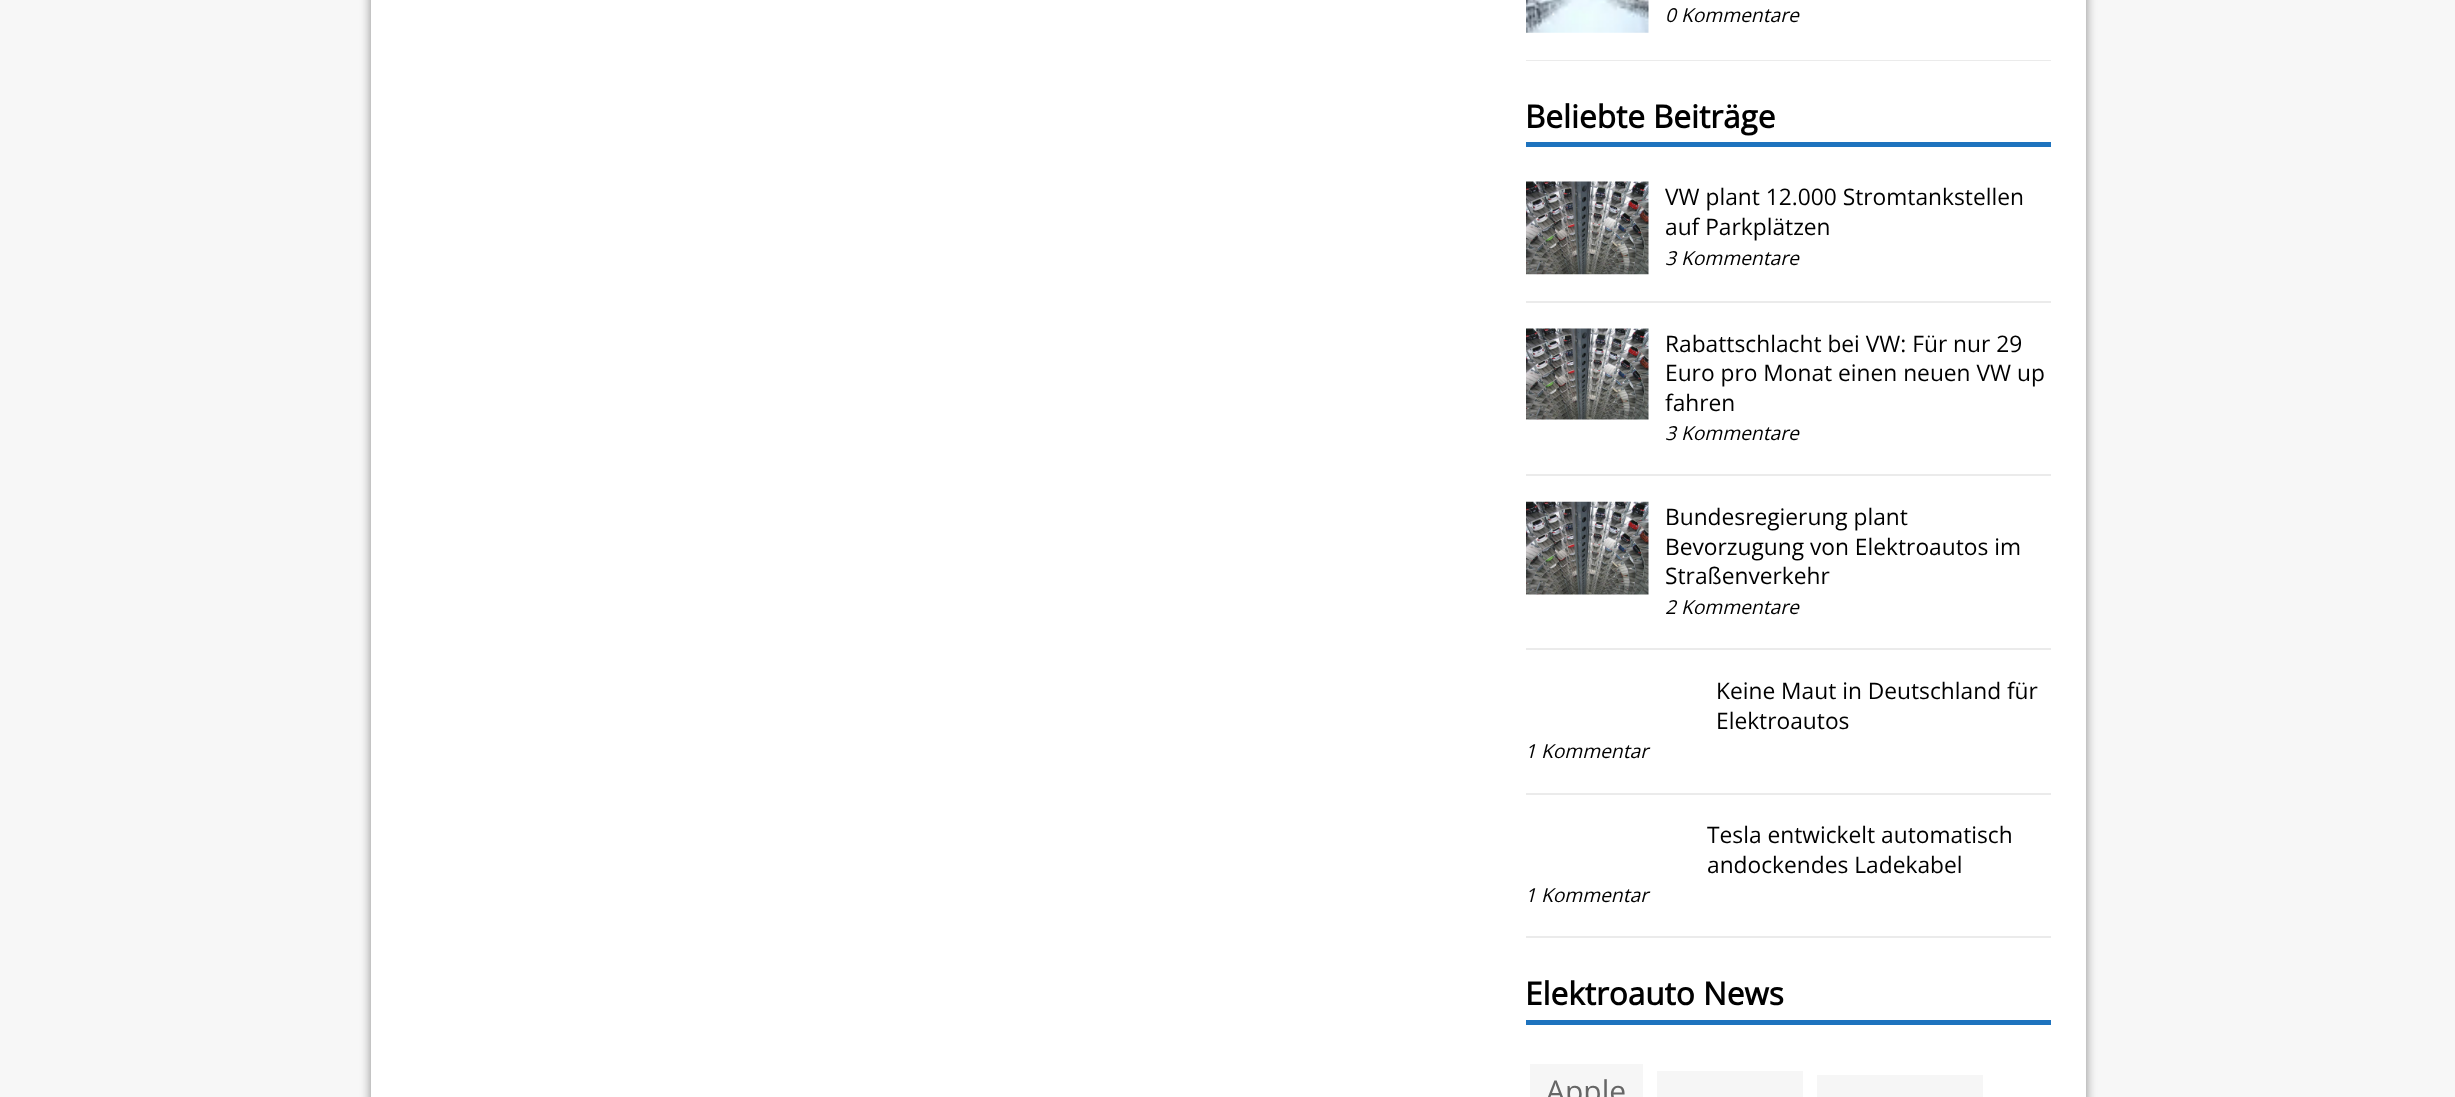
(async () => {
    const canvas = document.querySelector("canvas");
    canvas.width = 2455;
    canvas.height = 1097;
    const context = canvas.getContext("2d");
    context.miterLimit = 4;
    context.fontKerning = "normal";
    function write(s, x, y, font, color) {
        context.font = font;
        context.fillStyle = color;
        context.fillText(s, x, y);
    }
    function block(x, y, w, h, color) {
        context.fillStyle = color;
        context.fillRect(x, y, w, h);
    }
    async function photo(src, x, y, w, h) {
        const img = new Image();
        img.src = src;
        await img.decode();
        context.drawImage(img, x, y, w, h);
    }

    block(0, 0, 2455, 1097, "rgb(247, 247, 247)");
    context.fillStyle = "rgb(168, 168, 168)";
    context.filter = "blur(4.5px)";
    context.beginPath();
    context.rect(369, -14, 1719, 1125);
    context.fill();
    context.filter = "none";
    block(371, 0, 1715, 1097, "rgb(255, 255, 255)");
    block(1526, 60, 525, 1, "rgb(235, 235, 235)");
    await photo("media/1.png", 1526, 0, 123, 33);
    write("0 Kommentare", 1665, 22, "italic 19.25px Open Sans", "rgb(0, 0, 0)");
    block(1526, 142, 525, 5, "rgb(30, 115, 190)");
    write("Beliebte Beiträge", 1525, 128, "bold 31.5px Open Sans", "rgb(0, 0, 0)");
    block(1526, 301, 525, 2, "rgb(235, 235, 235)");
    await photo("media/2.png", 1526, 181, 123, 94);
    write("VW plant 12.000 Stromtankstellen", 1665, 205, "22.75px Open Sans", "rgb(0, 0, 0)");
    write("auf Parkplätzen", 1665, 235, "22.75px Open Sans", "rgb(0, 0, 0)");
    write("3 Kommentare", 1665, 265, "italic 19.25px Open Sans", "rgb(0, 0, 0)");
    block(1526, 474, 525, 2, "rgb(235, 235, 235)");
    await photo("media/3.png", 1526, 328, 123, 92);
    write("Rabattschlacht bei VW: Für nur 29", 1665, 352, "22.75px Open Sans", "rgb(0, 0, 0)");
    write("Euro pro Monat einen neuen VW up", 1665, 381, "22.75px Open Sans", "rgb(0, 0, 0)");
    write("fahren", 1665, 411, "22.75px Open Sans", "rgb(0, 0, 0)");
    write("3 Kommentare", 1665, 440, "italic 19.25px Open Sans", "rgb(0, 0, 0)");
    block(1526, 648, 525, 2, "rgb(235, 235, 235)");
    await photo("media/4.png", 1526, 501, 123, 94);
    write("Bundesregierung plant", 1665, 525, "22.75px Open Sans", "rgb(0, 0, 0)");
    write("Bevorzugung von Elektroautos im", 1665, 555, "22.75px Open Sans", "rgb(0, 0, 0)");
    write("Straßenverkehr", 1665, 584, "22.75px Open Sans", "rgb(0, 0, 0)");
    write("2 Kommentare", 1665, 614, "italic 19.25px Open Sans", "rgb(0, 0, 0)");
    block(1526, 793, 525, 2, "rgb(235, 235, 235)");
    write("Keine Maut in Deutschland für", 1716, 699, "22.75px Open Sans", "rgb(0, 0, 0)");
    write("Elektroautos", 1716, 729, "22.75px Open Sans", "rgb(0, 0, 0)");
    write("1 Kommentar", 1525, 758, "italic 19.25px Open Sans", "rgb(0, 0, 0)");
    block(1526, 936, 525, 2, "rgb(235, 235, 235)");
    write("Tesla entwickelt automatisch", 1707, 843, "22.75px Open Sans", "rgb(0, 0, 0)");
    write("andockendes Ladekabel", 1707, 873, "22.75px Open Sans", "rgb(0, 0, 0)");
    write("1 Kommentar", 1525, 902, "italic 19.25px Open Sans", "rgb(0, 0, 0)");
    block(1526, 1020, 525, 5, "rgb(30, 115, 190)");
    write("Elektroauto News", 1525, 1005, "bold 31.5px Open Sans", "rgb(0, 0, 0)");
    block(1530, 1064, 113, 33, "rgb(246, 246, 246)");
    write("Apple", 1546, 1102, "30px Open Sans", "rgb(102, 102, 102)");
    block(1657, 1071, 146, 26, "rgb(246, 246, 246)");
    block(1817, 1075, 166, 22, "rgb(246, 246, 246)");
})();
